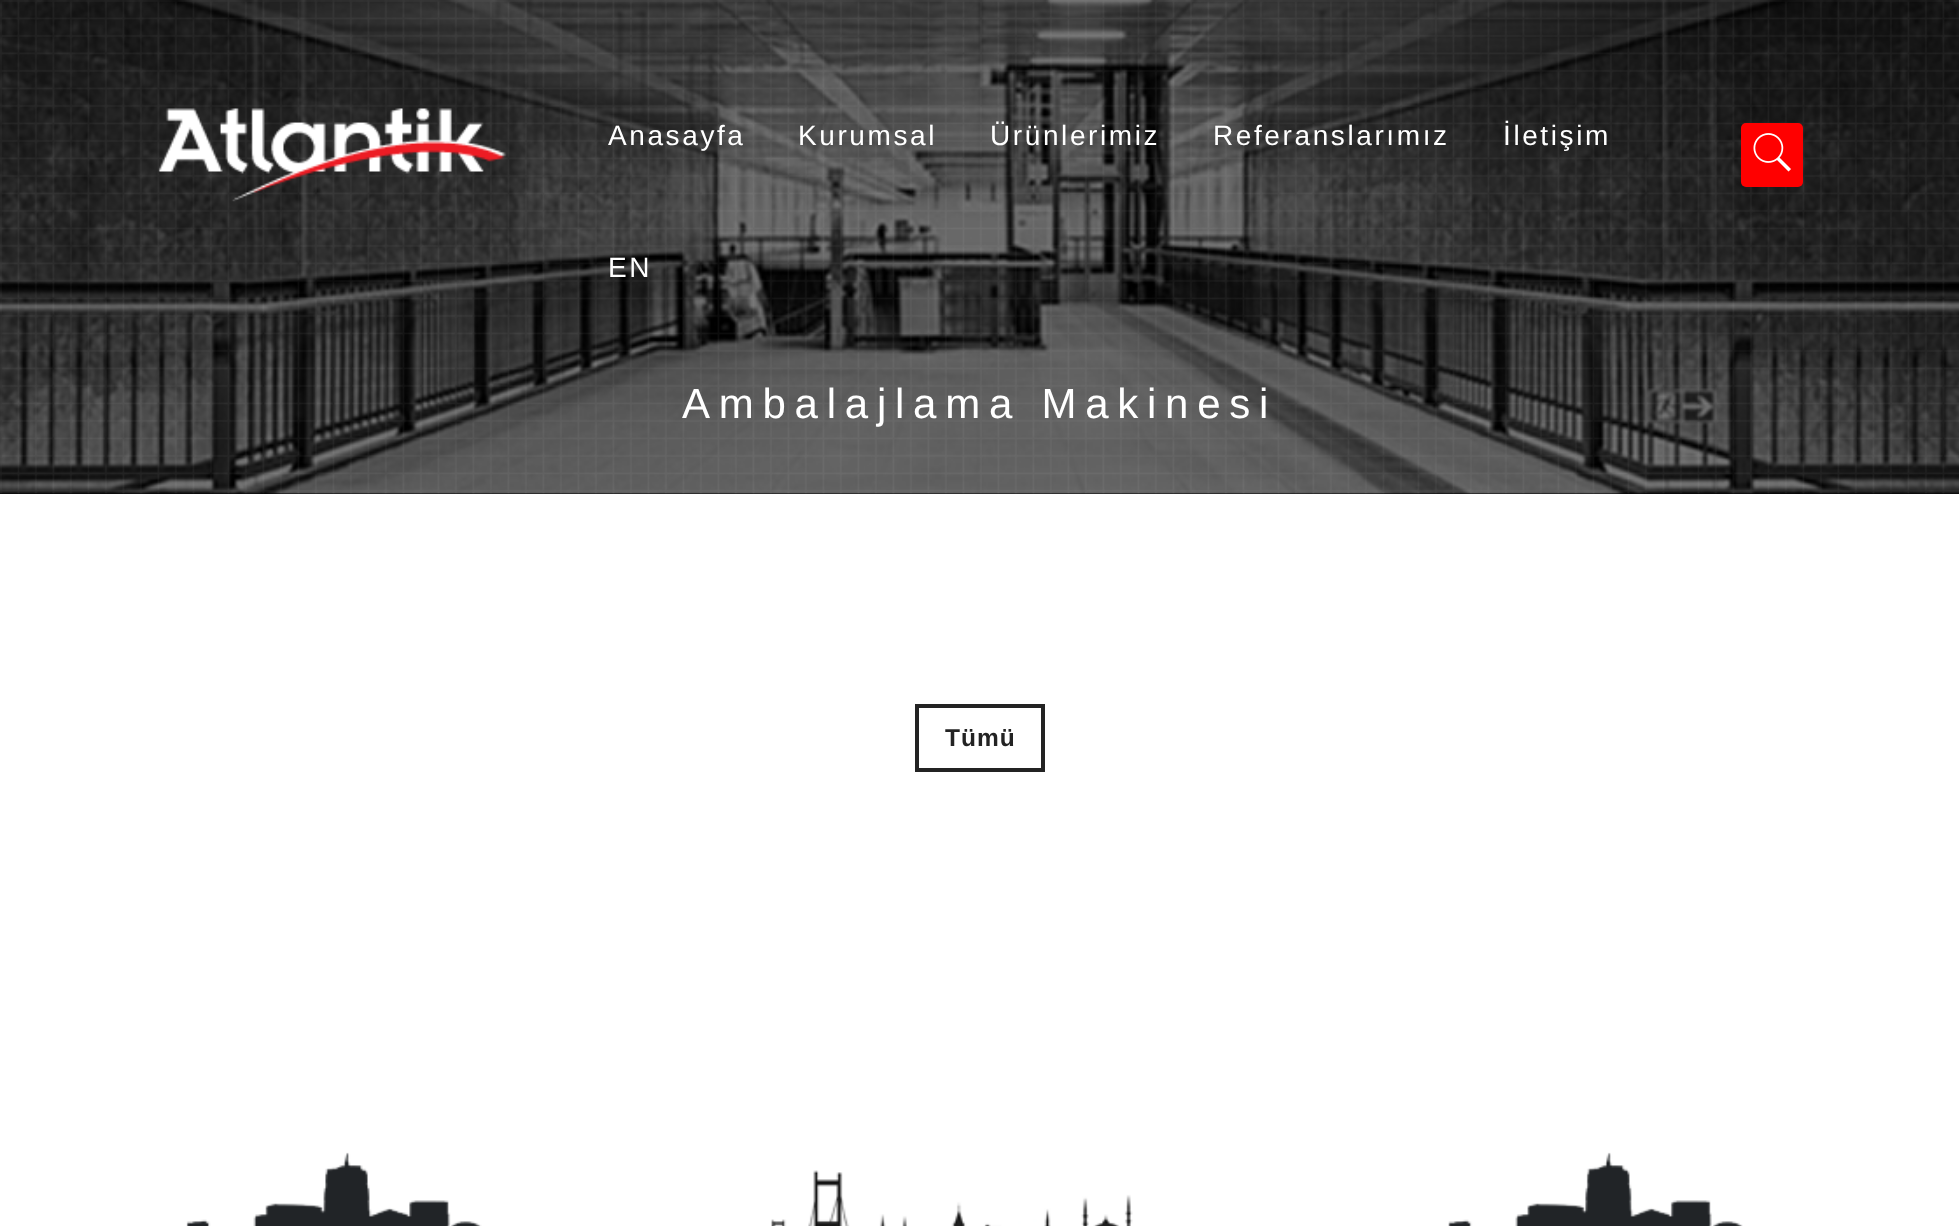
(async () => {
    const canvas = document.querySelector("canvas");
    canvas.width = 1959;
    canvas.height = 1226;
    const context = canvas.getContext("2d");
    context.miterLimit = 4;
    context.fontKerning = "normal";
    function write(s, x, y, font, color) {
        context.font = font;
        context.fillStyle = color;
        context.fillText(s, x, y);
    }
    function block(x, y, w, h, color) {
        context.fillStyle = color;
        context.fillRect(x, y, w, h);
    }
    function card(x, y, w, h, r, color) {
        context.fillStyle = color;
        context.beginPath();
        context.roundRect(x, y, w, h, r);
        context.fill();
    }
    async function photo(src, x, y, w, h) {
        const img = new Image();
        img.src = src;
        await img.decode();
        context.drawImage(img, x, y, w, h);
    }

    block(0, 0, 1959, 1226, "rgb(255, 255, 255)");
    block(0, 493, 1959, 1, "rgb(0, 0, 0)");
    await photo("media/3.png", 0, 0, 1959, 494);
    await photo("media/4.png", 0, 0, 1959, 494);
    await photo("media/1.png", 158, 108, 349, 94);
    context.letterSpacing = "2.6px";
    write("Anasayfa", 608, 145, "28px Liberation Sans", "rgb(255, 255, 255)");
    write("Kurumsal", 798, 145, "28px Liberation Sans", "rgb(255, 255, 255)");
    write("Ürünlerimiz", 990, 145, "28px Liberation Sans", "rgb(255, 255, 255)");
    write("Referanslarımız", 1213, 145, "28px Liberation Sans", "rgb(255, 255, 255)");
    write("İletişim", 1503, 145, "28px Liberation Sans", "rgb(255, 255, 255)");
    write("EN", 608, 277, "28px Liberation Sans", "rgb(255, 255, 255)");
    card(1741, 123, 62, 64, 5, "rgb(255, 0, 0)");
    await photo("media/2.png", 1753, 133, 38, 39);
    context.letterSpacing = "8.75px";
    write("Ambalajlama Makinesi", 682, 418, "42px Liberation Sans", "rgb(255, 255, 255)");
    context.strokeStyle = "rgb(35, 35, 35)";
    context.lineWidth = 4;
    context.strokeRect(917, 706, 126, 64);
    context.letterSpacing = "1px";
    write("Tümü", 945, 746, "bold 24.5px Liberation Sans", "rgb(35, 35, 35)");
    await photo("media/5.png", 186, 1152, 1557, 74);
})();
